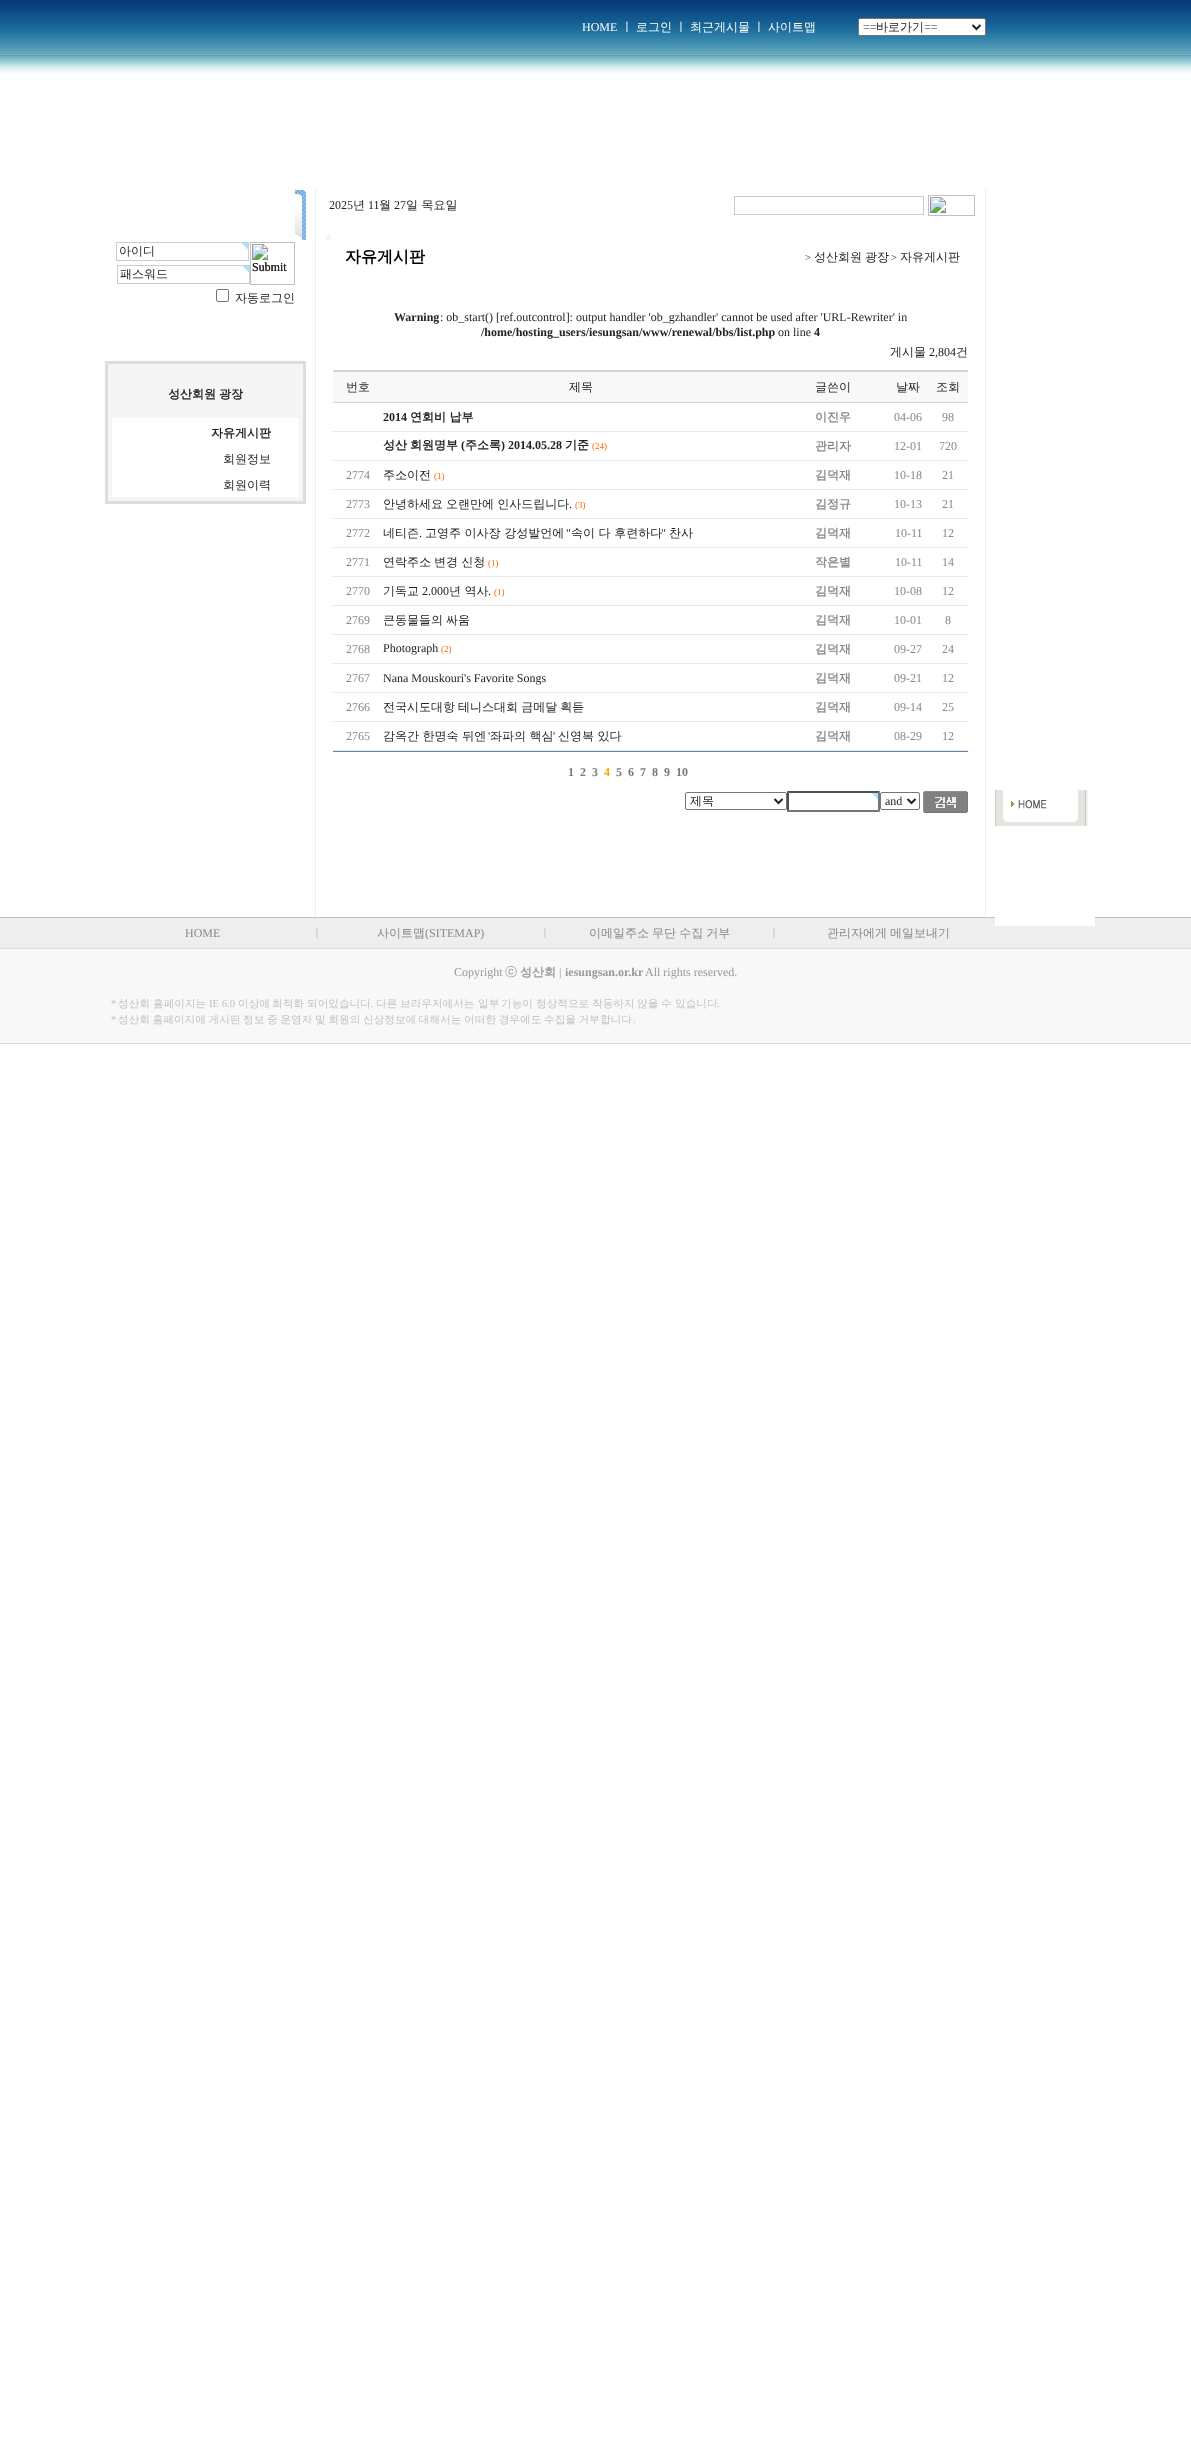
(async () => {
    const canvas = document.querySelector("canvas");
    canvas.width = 1191;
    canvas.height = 2452;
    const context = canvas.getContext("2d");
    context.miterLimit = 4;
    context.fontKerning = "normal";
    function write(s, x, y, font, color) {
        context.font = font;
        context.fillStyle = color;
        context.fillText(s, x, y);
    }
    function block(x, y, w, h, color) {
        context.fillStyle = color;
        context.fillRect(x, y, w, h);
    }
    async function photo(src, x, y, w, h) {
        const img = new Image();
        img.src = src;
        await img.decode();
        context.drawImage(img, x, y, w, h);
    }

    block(0, 0, 1191, 2452, "rgb(255, 255, 255)");
    await photo("media/1.png", 0, 0, 1191, 75);
    write("HOME", 582, 31, "12px Liberation Serif", "rgb(255, 255, 255)");
    write("ㅣ", 621, 31, "500 12px WenQuanYi Zen Hei", "rgb(255, 255, 255)");
    write("로그인", 636, 31, "500 12px WenQuanYi Zen Hei", "rgb(255, 255, 255)");
    write("ㅣ", 675, 31, "500 12px WenQuanYi Zen Hei", "rgb(255, 255, 255)");
    write("최근게시물", 690, 31, "500 12px WenQuanYi Zen Hei", "rgb(255, 255, 255)");
    write("ㅣ", 753, 31, "500 12px WenQuanYi Zen Hei", "rgb(255, 255, 255)");
    write("사이트맵", 768, 31, "500 12px WenQuanYi Zen Hei", "rgb(255, 255, 255)");
    context.beginPath();
    context.roundRect(858.5, 18.5, 127, 17, 1.5);
    context.fill();
    context.strokeStyle = "rgb(118, 118, 118)";
    context.stroke();
    context.beginPath();
    context.moveTo(972.5, 25);
    context.lineTo(976.5, 29);
    context.lineTo(980.5, 25);
    context.strokeStyle = "rgb(34, 34, 34)";
    context.lineWidth = 2;
    context.stroke();
    write("==", 863, 31, "12px Liberation Serif", "rgb(34, 34, 34)");
    write("바로가기", 876, 31, "500 12px WenQuanYi Zen Hei", "rgb(34, 34, 34)");
    write("==", 924, 31, "12px Liberation Serif", "rgb(34, 34, 34)");
    await photo("media/2.png", 295, 190, 11, 50);
    await photo("media/3.png", 242, 243, 6, 6);
    context.strokeStyle = "rgb(204, 204, 204)";
    context.lineWidth = 1;
    context.strokeRect(116.5, 242.5, 132, 18);
    write("아이디", 119, 255, "500 12px WenQuanYi Zen Hei", "rgb(34, 34, 34)");
    await photo("media/3.png", 243, 266, 6, 6);
    context.strokeRect(117.5, 265.5, 132, 18);
    write("패스워드", 120, 278, "500 12px WenQuanYi Zen Hei", "rgb(34, 34, 34)");
    await photo("media/4.png", 250, 242, 45, 43);
    write("Submit", 252, 271, "12px Liberation Serif", "rgb(34, 34, 34)");
    context.beginPath();
    context.roundRect(216.5, 289.5, 12, 12, 1.5);
    context.strokeStyle = "rgb(118, 118, 118)";
    context.stroke();
    write("자동로그인", 235, 302, "500 12px WenQuanYi Zen Hei", "rgb(34, 34, 34)");
    block(105, 361, 201, 143, "rgb(221, 221, 221)");
    block(108, 364, 195, 137, "rgb(245, 245, 245)");
    block(112, 418, 187, 79, "rgb(255, 255, 255)");
    context.wordSpacing = "-0.5px";
    write("성산회원 광장", 168, 398, "bold 12px WenQuanYi Zen Hei", "rgb(34, 34, 34)");
    context.wordSpacing = "0px";
    write("자유게시판", 211, 437, "bold 12px WenQuanYi Zen Hei", "rgb(34, 34, 34)");
    write("회원정보", 223, 463, "500 12px WenQuanYi Zen Hei", "rgb(34, 34, 34)");
    write("회원이력", 223, 489, "500 12px WenQuanYi Zen Hei", "rgb(34, 34, 34)");
    block(985, 190, 1, 727, "rgb(238, 238, 238)");
    block(315, 190, 1, 727, "rgb(238, 238, 238)");
    write("2025", 329, 209, "12px Liberation Serif", "rgb(34, 34, 34)");
    write("년", 353, 209, "500 12px WenQuanYi Zen Hei", "rgb(34, 34, 34)");
    write("11", 368, 209, "12px Liberation Serif", "rgb(34, 34, 34)");
    write("월", 379, 209, "500 12px WenQuanYi Zen Hei", "rgb(34, 34, 34)");
    write("27", 394, 209, "12px Liberation Serif", "rgb(34, 34, 34)");
    write("일 목요일", 406, 209, "500 12px WenQuanYi Zen Hei", "rgb(34, 34, 34)");
    context.strokeStyle = "rgb(204, 204, 204)";
    context.strokeRect(734.5, 196.5, 189, 18);
    await photo("media/5.png", 928, 195, 47, 21);
    block(326, 235, 5, 5, "rgb(237, 246, 253)");
    write("자유게시판", 345, 262, "bold 16px WenQuanYi Zen Hei", "rgb(0, 0, 0)");
    write(">", 805, 261, "10.65px Liberation Serif", "rgb(34, 34, 34)");
    context.wordSpacing = "-0.5px";
    write("성산회원 광장", 814, 261, "500 12px WenQuanYi Zen Hei", "rgb(34, 34, 34)");
    context.wordSpacing = "0px";
    write(">", 891, 261, "10.65px Liberation Serif", "rgb(34, 34, 34)");
    write("자유게시판", 900, 261, "500 12px WenQuanYi Zen Hei", "rgb(34, 34, 34)");
    write("Warning", 394, 321, "bold 12px Liberation Serif", "rgb(34, 34, 34)");
    write(": ob_start() [ref.outcontrol]: output handler 'ob_gzhandler' cannot be used after 'URL-Rewriter' in", 440, 321, "12px Liberation Serif", "rgb(34, 34, 34)");
    write("/home/hosting_users/iesungsan/www/renewal/bbs/list.php", 481, 336, "bold 12px Liberation Serif", "rgb(34, 34, 34)");
    write("on line", 778, 336, "12px Liberation Serif", "rgb(34, 34, 34)");
    write("4", 814, 336, "bold 12px Liberation Serif", "rgb(34, 34, 34)");
    write("게시물", 890, 356, "500 12px WenQuanYi Zen Hei", "rgb(34, 34, 34)");
    write("2,804", 929, 356, "12px Liberation Serif", "rgb(34, 34, 34)");
    write("건", 956, 356, "500 12px WenQuanYi Zen Hei", "rgb(34, 34, 34)");
    block(333, 370, 635, 2, "rgb(202, 215, 222)");
    block(333, 372, 635, 30, "rgb(248, 248, 249)");
    write("번호", 346, 391, "500 12px WenQuanYi Zen Hei", "rgb(34, 34, 34)");
    write("제목", 569, 391, "500 12px WenQuanYi Zen Hei", "rgb(34, 34, 34)");
    write("글쓴이", 815, 391, "500 12px WenQuanYi Zen Hei", "rgb(34, 34, 34)");
    write("날짜", 896, 391, "500 12px WenQuanYi Zen Hei", "rgb(34, 34, 34)");
    write("조회", 936, 391, "500 12px WenQuanYi Zen Hei", "rgb(34, 34, 34)");
    block(333, 402, 635, 1, "rgb(202, 215, 222)");
    write("2014", 383, 421, "bold 12px Liberation Serif", "rgb(34, 34, 34)");
    write("연회비 납부", 410, 421, "bold 12px WenQuanYi Zen Hei", "rgb(34, 34, 34)");
    write("이진우", 815, 421, "bold 12px WenQuanYi Zen Hei", "rgb(136, 136, 136)");
    write("04-06", 894, 421, "12px Liberation Serif", "rgb(136, 136, 136)");
    write("98", 942, 421, "12px Liberation Serif", "rgb(136, 136, 136)");
    block(333, 431, 635, 1, "rgb(231, 231, 231)");
    write("성산", 383, 449, "bold 12px WenQuanYi Zen Hei", "rgb(34, 34, 34)");
    write("회원명부", 410, 449, "bold 12px WenQuanYi Zen Hei", "rgb(34, 34, 34)");
    write("(", 461, 449, "bold 12px Liberation Serif", "rgb(34, 34, 34)");
    write("주소록", 465, 449, "bold 12px WenQuanYi Zen Hei", "rgb(34, 34, 34)");
    write(") 2014.05.28", 501, 449, "bold 12px Liberation Serif", "rgb(34, 34, 34)");
    write("기준", 565, 449, "bold 12px WenQuanYi Zen Hei", "rgb(34, 34, 34)");
    write("(24)", 592, 449, "9px Liberation Serif", "rgb(255, 102, 0)");
    write("관리자", 815, 450, "bold 12px WenQuanYi Zen Hei", "rgb(136, 136, 136)");
    write("12-01", 894, 450, "12px Liberation Serif", "rgb(136, 136, 136)");
    write("720", 939, 450, "12px Liberation Serif", "rgb(136, 136, 136)");
    block(333, 460, 635, 1, "rgb(231, 231, 231)");
    write("2774", 346, 479, "12px Liberation Serif", "rgb(136, 136, 136)");
    write("주소이전", 383, 479, "500 12px WenQuanYi Zen Hei", "rgb(34, 34, 34)");
    write("(1)", 434, 479, "9px Liberation Serif", "rgb(255, 102, 0)");
    write("김덕재", 815, 479, "bold 12px WenQuanYi Zen Hei", "rgb(136, 136, 136)");
    write("10-18", 894, 479, "12px Liberation Serif", "rgb(136, 136, 136)");
    write("21", 942, 479, "12px Liberation Serif", "rgb(136, 136, 136)");
    block(333, 489, 635, 1, "rgb(231, 231, 231)");
    write("2773", 346, 508, "12px Liberation Serif", "rgb(136, 136, 136)");
    context.wordSpacing = "-0.5px";
    write("안녕하세요 오랜만에 인사드립니다", 383, 508, "500 12px WenQuanYi Zen Hei", "rgb(34, 34, 34)");
    context.wordSpacing = "0px";
    write(".", 569, 508, "12px Liberation Serif", "rgb(34, 34, 34)");
    write("(3)", 575, 508, "9px Liberation Serif", "rgb(255, 102, 0)");
    write("김정규", 815, 508, "bold 12px WenQuanYi Zen Hei", "rgb(136, 136, 136)");
    write("10-13", 894, 508, "12px Liberation Serif", "rgb(136, 136, 136)");
    write("21", 942, 508, "12px Liberation Serif", "rgb(136, 136, 136)");
    block(333, 518, 635, 1, "rgb(231, 231, 231)");
    write("2772", 346, 537, "12px Liberation Serif", "rgb(136, 136, 136)");
    write("네티즌", 383, 537, "500 12px WenQuanYi Zen Hei", "rgb(34, 34, 34)");
    write("고영주 이사장 강성발언에", 425, 537, "500 12px WenQuanYi Zen Hei", "rgb(34, 34, 34)");
    write("\"", 566, 537, "12px Liberation Serif", "rgb(34, 34, 34)");
    write("속이 다 후련하다", 571, 537, "500 12px WenQuanYi Zen Hei", "rgb(34, 34, 34)");
    write("\"", 661, 537, "12px Liberation Serif", "rgb(34, 34, 34)");
    write("찬사", 669, 537, "500 12px WenQuanYi Zen Hei", "rgb(34, 34, 34)");
    write(".", 419, 537, "12px Liberation Serif", "rgb(34, 34, 34)");
    write("김덕재", 815, 537, "bold 12px WenQuanYi Zen Hei", "rgb(136, 136, 136)");
    write("10-11", 895, 537, "12px Liberation Serif", "rgb(136, 136, 136)");
    write("12", 942, 537, "12px Liberation Serif", "rgb(136, 136, 136)");
    block(333, 547, 635, 1, "rgb(231, 231, 231)");
    write("2771", 346, 566, "12px Liberation Serif", "rgb(136, 136, 136)");
    context.wordSpacing = "-0.5px";
    write("연락주소 변경 신청", 383, 566, "500 12px WenQuanYi Zen Hei", "rgb(34, 34, 34)");
    context.wordSpacing = "0px";
    write("(1)", 488, 566, "9px Liberation Serif", "rgb(255, 102, 0)");
    write("작은별", 815, 566, "bold 12px WenQuanYi Zen Hei", "rgb(136, 136, 136)");
    write("10-11", 895, 566, "12px Liberation Serif", "rgb(136, 136, 136)");
    write("14", 942, 566, "12px Liberation Serif", "rgb(136, 136, 136)");
    block(333, 576, 635, 1, "rgb(231, 231, 231)");
    write("2770", 346, 595, "12px Liberation Serif", "rgb(136, 136, 136)");
    write("기독교", 383, 595, "500 12px WenQuanYi Zen Hei", "rgb(34, 34, 34)");
    write("2.000", 422, 595, "12px Liberation Serif", "rgb(34, 34, 34)");
    write("년 역사", 449, 595, "500 12px WenQuanYi Zen Hei", "rgb(34, 34, 34)");
    write(".", 488, 595, "12px Liberation Serif", "rgb(34, 34, 34)");
    write("(1)", 494, 595, "9px Liberation Serif", "rgb(255, 102, 0)");
    write("김덕재", 815, 595, "bold 12px WenQuanYi Zen Hei", "rgb(136, 136, 136)");
    write("10-08", 894, 595, "12px Liberation Serif", "rgb(136, 136, 136)");
    write("12", 942, 595, "12px Liberation Serif", "rgb(136, 136, 136)");
    block(333, 605, 635, 1, "rgb(231, 231, 231)");
    write("2769", 346, 624, "12px Liberation Serif", "rgb(136, 136, 136)");
    context.wordSpacing = "-0.5px";
    write("큰동물들의 싸움", 383, 624, "500 12px WenQuanYi Zen Hei", "rgb(34, 34, 34)");
    context.wordSpacing = "0px";
    write("김덕재", 815, 624, "bold 12px WenQuanYi Zen Hei", "rgb(136, 136, 136)");
    write("10-01", 894, 624, "12px Liberation Serif", "rgb(136, 136, 136)");
    write("8", 945, 624, "12px Liberation Serif", "rgb(136, 136, 136)");
    block(333, 634, 635, 1, "rgb(231, 231, 231)");
    write("2768", 346, 653, "12px Liberation Serif", "rgb(136, 136, 136)");
    write("Photograph", 383, 652, "12px Liberation Serif", "rgb(34, 34, 34)");
    write("(2)", 441, 652, "9px Liberation Serif", "rgb(255, 102, 0)");
    write("김덕재", 815, 653, "bold 12px WenQuanYi Zen Hei", "rgb(136, 136, 136)");
    write("09-27", 894, 653, "12px Liberation Serif", "rgb(136, 136, 136)");
    write("24", 942, 653, "12px Liberation Serif", "rgb(136, 136, 136)");
    block(333, 663, 635, 1, "rgb(231, 231, 231)");
    write("2767", 346, 682, "12px Liberation Serif", "rgb(136, 136, 136)");
    write("Nana Mouskouri's Favorite Songs", 383, 682, "12px Liberation Serif", "rgb(34, 34, 34)");
    write("김덕재", 815, 682, "bold 12px WenQuanYi Zen Hei", "rgb(136, 136, 136)");
    write("09-21", 894, 682, "12px Liberation Serif", "rgb(136, 136, 136)");
    write("12", 942, 682, "12px Liberation Serif", "rgb(136, 136, 136)");
    block(333, 692, 635, 1, "rgb(231, 231, 231)");
    write("2766", 346, 711, "12px Liberation Serif", "rgb(136, 136, 136)");
    context.wordSpacing = "-0.5px";
    write("전국시도대항 테니스대회 금메달 획듣", 383, 711, "500 12px WenQuanYi Zen Hei", "rgb(34, 34, 34)");
    context.wordSpacing = "0px";
    write("김덕재", 815, 711, "bold 12px WenQuanYi Zen Hei", "rgb(136, 136, 136)");
    write("09-14", 894, 711, "12px Liberation Serif", "rgb(136, 136, 136)");
    write("25", 942, 711, "12px Liberation Serif", "rgb(136, 136, 136)");
    block(333, 721, 635, 1, "rgb(231, 231, 231)");
    write("2765", 346, 740, "12px Liberation Serif", "rgb(136, 136, 136)");
    write("감옥간 한명숙 뒤엔", 383, 740, "500 12px WenQuanYi Zen Hei", "rgb(34, 34, 34)");
    write("'", 488, 740, "12px Liberation Serif", "rgb(34, 34, 34)");
    write("좌파의 핵심", 490, 740, "500 12px WenQuanYi Zen Hei", "rgb(34, 34, 34)");
    write("'", 553, 740, "12px Liberation Serif", "rgb(34, 34, 34)");
    write("신영복 있다", 558, 740, "500 12px WenQuanYi Zen Hei", "rgb(34, 34, 34)");
    write("김덕재", 815, 740, "bold 12px WenQuanYi Zen Hei", "rgb(136, 136, 136)");
    write("08-29", 894, 740, "12px Liberation Serif", "rgb(136, 136, 136)");
    write("12", 942, 740, "12px Liberation Serif", "rgb(136, 136, 136)");
    block(333, 750, 635, 1, "rgb(231, 231, 231)");
    block(333, 751, 635, 1, "rgb(92, 134, 173)");
    write("1", 568, 776, "bold 12px Liberation Serif", "rgb(121, 121, 121)");
    write("2", 580, 776, "bold 12px Liberation Serif", "rgb(121, 121, 121)");
    write("3", 592, 776, "bold 12px Liberation Serif", "rgb(121, 121, 121)");
    write("4", 604, 776, "bold 12px Liberation Serif", "rgb(255, 165, 0)");
    write("5", 616, 776, "bold 12px Liberation Serif", "rgb(121, 121, 121)");
    write("6", 628, 776, "bold 12px Liberation Serif", "rgb(121, 121, 121)");
    write("7", 640, 776, "bold 12px Liberation Serif", "rgb(121, 121, 121)");
    write("8", 652, 776, "bold 12px Liberation Serif", "rgb(121, 121, 121)");
    write("9", 664, 776, "bold 12px Liberation Serif", "rgb(121, 121, 121)");
    write("10", 676, 776, "bold 12px Liberation Serif", "rgb(121, 121, 121)");
    context.beginPath();
    context.roundRect(685.5, 792.5, 101, 17, 1.5);
    context.strokeStyle = "rgb(118, 118, 118)";
    context.stroke();
    context.beginPath();
    context.moveTo(774.5, 799);
    context.lineTo(778.5, 803);
    context.lineTo(782.5, 799);
    context.strokeStyle = "rgb(34, 34, 34)";
    context.lineWidth = 2;
    context.stroke();
    write("제목", 690, 805, "500 12px WenQuanYi Zen Hei", "rgb(34, 34, 34)");
    await photo("media/3.png", 872, 793, 6, 6);
    context.fillStyle = "rgb(79, 79, 79)";
    context.beginPath();
    context.moveTo(787, 791);
    context.lineTo(880, 791);
    context.lineTo(878, 793);
    context.lineTo(789, 793);
    context.closePath();
    context.fill();
    context.fillStyle = "rgb(118, 118, 118)";
    context.beginPath();
    context.moveTo(880, 791);
    context.lineTo(880, 812);
    context.lineTo(878, 810);
    context.lineTo(878, 793);
    context.closePath();
    context.fill();
    context.beginPath();
    context.moveTo(880, 812);
    context.lineTo(787, 812);
    context.lineTo(789, 810);
    context.lineTo(878, 810);
    context.closePath();
    context.fill();
    context.fillStyle = "rgb(79, 79, 79)";
    context.beginPath();
    context.moveTo(787, 812);
    context.lineTo(787, 791);
    context.lineTo(789, 793);
    context.lineTo(789, 810);
    context.closePath();
    context.fill();
    context.beginPath();
    context.roundRect(880.5, 792.5, 39, 17, 1.5);
    context.strokeStyle = "rgb(118, 118, 118)";
    context.lineWidth = 1;
    context.stroke();
    context.beginPath();
    context.moveTo(907.5, 799);
    context.lineTo(911.5, 803);
    context.lineTo(915.5, 799);
    context.strokeStyle = "rgb(34, 34, 34)";
    context.lineWidth = 2;
    context.stroke();
    write("and", 885, 805, "12px Liberation Serif", "rgb(34, 34, 34)");
    await photo("media/6.png", 923, 791, 45, 22);
    block(0, 918, 1191, 30, "rgb(238, 238, 238)");
    block(0, 917, 1191, 1, "rgb(192, 192, 192)");
    block(995, 917, 100, 9, "rgb(255, 255, 255)");
    await photo("media/7.png", 995, 790, 93, 36);
    write("HOME", 185, 937, "12px Liberation Serif", "rgb(136, 136, 136)");
    write("ㅣ", 311, 937, "500 12px WenQuanYi Zen Hei", "rgb(192, 192, 192)");
    write("사이트맵", 377, 937, "500 12px WenQuanYi Zen Hei", "rgb(136, 136, 136)");
    write("(SITEMAP)", 425, 937, "12px Liberation Serif", "rgb(136, 136, 136)");
    write("ㅣ", 539, 937, "500 12px WenQuanYi Zen Hei", "rgb(192, 192, 192)");
    context.wordSpacing = "-0.5px";
    write("이메일주소 무단 수집 거부", 589, 937, "500 12px WenQuanYi Zen Hei", "rgb(136, 136, 136)");
    context.wordSpacing = "0px";
    write("ㅣ", 768, 937, "500 12px WenQuanYi Zen Hei", "rgb(192, 192, 192)");
    context.wordSpacing = "-0.5px";
    write("관리자에게 메일보내기", 827, 937, "500 12px WenQuanYi Zen Hei", "rgb(136, 136, 136)");
    block(0, 949, 1191, 94, "rgb(248, 248, 248)");
    block(0, 948, 1191, 1, "rgb(220, 220, 220)");
    block(0, 1043, 1191, 1, "rgb(220, 220, 220)");
    context.wordSpacing = "0px";
    write("Copyright", 454, 976, "12px Liberation Serif", "rgb(153, 153, 153)");
    write("ⓒ", 505, 976, "500 12px WenQuanYi Zen Hei", "rgb(153, 153, 153)");
    write("성산회", 520, 976, "bold 12px WenQuanYi Zen Hei", "rgb(153, 153, 153)");
    write("|", 559, 976, "12px Liberation Serif", "rgb(153, 153, 153)");
    write("iesungsan.or.kr", 565, 976, "bold 12px Liberation Serif", "rgb(153, 153, 153)");
    write("All rights reserved.", 645, 976, "12px Liberation Serif", "rgb(153, 153, 153)");
    write("*", 111, 1007, "10.65px Liberation Serif", "rgb(192, 192, 192)");
    write("성산회", 118, 1007, "500 10.65px WenQuanYi Zen Hei", "rgb(192, 192, 192)");
    write("홈페이지는", 153, 1007, "500 10.65px WenQuanYi Zen Hei", "rgb(192, 192, 192)");
    write("IE 6.0", 209, 1007, "10.65px Liberation Serif", "rgb(192, 192, 192)");
    write("이상에", 238, 1007, "500 10.65px WenQuanYi Zen Hei", "rgb(192, 192, 192)");
    write("최적화", 272, 1007, "500 10.65px WenQuanYi Zen Hei", "rgb(192, 192, 192)");
    write("되어있습니다", 307, 1007, "500 10.65px WenQuanYi Zen Hei", "rgb(192, 192, 192)");
    write("다른", 376, 1007, "500 10.65px WenQuanYi Zen Hei", "rgb(192, 192, 192)");
    write("브라우저에서는", 400, 1007, "500 10.65px WenQuanYi Zen Hei", "rgb(192, 192, 192)");
    write("일부", 478, 1007, "500 10.65px WenQuanYi Zen Hei", "rgb(192, 192, 192)");
    write("기능이", 501, 1007, "500 10.65px WenQuanYi Zen Hei", "rgb(192, 192, 192)");
    write("정상적으로", 536, 1007, "500 10.65px WenQuanYi Zen Hei", "rgb(192, 192, 192)");
    write("작동하지", 592, 1007, "500 10.65px WenQuanYi Zen Hei", "rgb(192, 192, 192)");
    write("않을", 637, 1007, "500 10.65px WenQuanYi Zen Hei", "rgb(192, 192, 192)");
    write("수", 661, 1007, "500 10.65px WenQuanYi Zen Hei", "rgb(192, 192, 192)");
    write("있습니다", 675, 1007, "500 10.65px WenQuanYi Zen Hei", "rgb(192, 192, 192)");
    write(".", 371, 1007, "10.65px Liberation Serif", "rgb(192, 192, 192)");
    write(".", 717, 1007, "10.65px Liberation Serif", "rgb(192, 192, 192)");
    write("*", 111, 1023, "10.65px Liberation Serif", "rgb(192, 192, 192)");
    context.wordSpacing = "-0.5px";
    write("성산회 홈페이지에 게시된 정보 중 운영자 및 회원의 신상정보에 대해서는 어떠한 경우에도 수집을 거부합니다", 118, 1023, "500 10.65px WenQuanYi Zen Hei", "rgb(192, 192, 192)");
    context.wordSpacing = "0px";
    write(".", 633, 1023, "10.65px Liberation Serif", "rgb(192, 192, 192)");
})();
